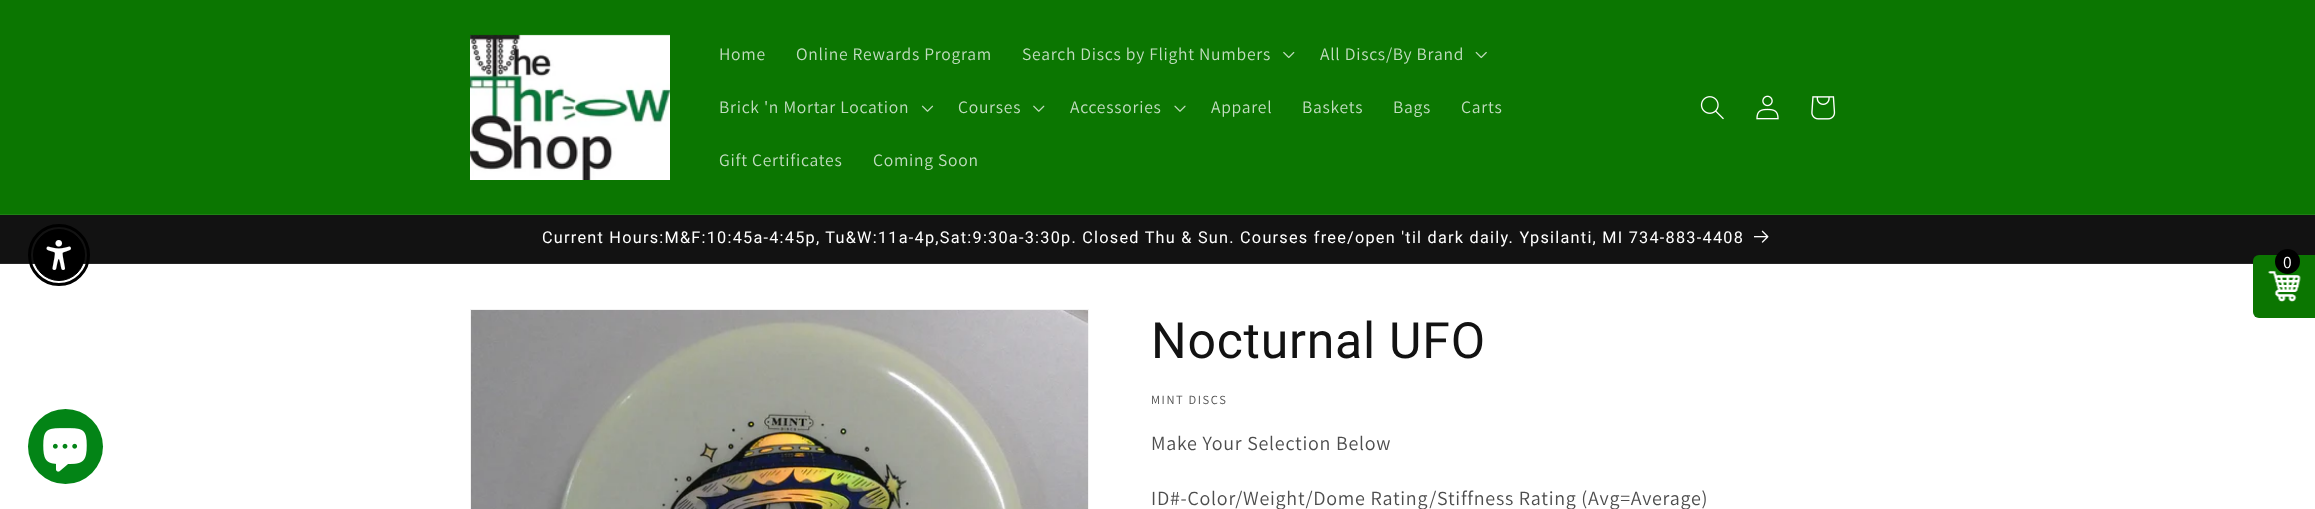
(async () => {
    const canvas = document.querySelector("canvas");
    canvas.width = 2315;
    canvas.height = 509;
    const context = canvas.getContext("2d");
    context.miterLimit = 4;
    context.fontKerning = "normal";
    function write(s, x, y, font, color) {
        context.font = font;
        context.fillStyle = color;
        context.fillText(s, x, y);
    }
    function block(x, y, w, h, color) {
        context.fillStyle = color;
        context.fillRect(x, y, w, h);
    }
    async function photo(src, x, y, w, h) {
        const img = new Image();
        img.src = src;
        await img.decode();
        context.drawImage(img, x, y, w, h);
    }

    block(0, 0, 2315, 509, "rgb(255, 255, 255)");
    block(0, 0, 2315, 214, "rgb(11, 118, 1)");
    block(0, 214, 2315, 1, "rgb(31, 129, 21)");
    await photo("media/1.png", 470, 34, 200, 146);
    context.letterSpacing = "0.75px";
    write("Home", 719, 60, "17.5px Assistant", "rgb(194, 221, 192)");
    write("Online Rewards Program", 796, 60, "17.5px Assistant", "rgb(194, 221, 192)");
    write("Search Discs by Flight Numbers", 1022, 60, "17.5px Assistant", "rgb(194, 221, 192)");
    await photo("media/2.png", 1283, 51, 12, 8);
    write("All Discs/By Brand", 1320, 60, "17.5px Assistant", "rgb(194, 221, 192)");
    await photo("media/3.png", 1475, 51, 12, 8);
    write("Brick 'n Mortar Location", 719, 113, "17.5px Assistant", "rgb(194, 221, 192)");
    await photo("media/4.png", 921, 105, 13, 7);
    write("Courses", 958, 113, "17.5px Assistant", "rgb(194, 221, 192)");
    await photo("media/5.png", 1033, 105, 12, 7);
    write("Accessories", 1070, 113, "17.5px Assistant", "rgb(194, 221, 192)");
    await photo("media/6.png", 1174, 105, 12, 7);
    write("Apparel", 1211, 113, "17.5px Assistant", "rgb(194, 221, 192)");
    write("Baskets", 1302, 113, "17.5px Assistant", "rgb(194, 221, 192)");
    write("Bags", 1393, 113, "17.5px Assistant", "rgb(194, 221, 192)");
    write("Carts", 1461, 113, "17.5px Assistant", "rgb(194, 221, 192)");
    write("Gift Certificates", 719, 166, "17.5px Assistant", "rgb(194, 221, 192)");
    write("Coming Soon", 873, 166, "17.5px Assistant", "rgb(194, 221, 192)");
    await photo("media/7.png", 1700, 96, 24, 24);
    await photo("media/8.png", 1756, 95, 23, 25);
    await photo("media/9.png", 1811, 96, 25, 24);
    block(0, 215, 2315, 48, "rgb(18, 18, 18)");
    block(0, 263, 2253, 1, "rgb(37, 37, 37)");
    context.beginPath();
    context.arc(59, 255, 29.5, 0, Math.PI * 2);
    context.strokeStyle = "rgb(0, 0, 0)";
    context.lineWidth = 3;
    context.stroke();
    context.fillStyle = "rgb(0, 0, 0)";
    context.beginPath();
    context.arc(59, 255, 25.5, 0, Math.PI * 2);
    context.fill();
    context.lineWidth = 1;
    context.stroke();
    await photo("media/10.png", 46, 240, 25, 30);
    context.letterSpacing = "1.25px";
    write("Current Hours:M&F:10:45a-4:45p, Tu&W:11a-4p,Sat:9:30a-3:30p. Closed Thu & Sun. Courses free/open 'til dark daily. Ypsilanti, MI 734-883-4408", 542, 243, "16.25px Roboto", "rgb(255, 255, 255)");
    await photo("media/11.png", 1754, 230, 15, 13);
    context.fillStyle = "rgb(11, 118, 1)";
    context.beginPath();
    context.roundRect(2253, 255, 62, 63, [6, 0, 0, 6]);
    context.fill();
    await photo("media/12.png", 2268, 271, 33, 31);
    context.fillStyle = "rgb(0, 0, 0)";
    context.beginPath();
    context.arc(2287.5, 261.5, 12.5, 0, Math.PI * 2);
    context.fill();
    context.letterSpacing = "0.75px";
    write("0", 2283, 268, "17.5px Assistant", "rgb(255, 255, 255)");
    context.fillStyle = "rgb(3, 132, 22)";
    context.beginPath();
    context.arc(65.5, 446.5, 37.5, 0, Math.PI * 2);
    context.fill();
    await photo("media/13.png", 43, 428, 44, 44);
    context.strokeStyle = "rgb(243, 243, 243)";
    context.strokeRect(470.5, 309.5, 618, 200);
    await photo("media/14.png", 471, 310, 617, 199);
    write("Nocturnal UFO", 1151, 358, "50px Roboto", "rgb(18, 18, 18)");
    context.letterSpacing = "1.6px";
    write("MINT DISCS", 1151, 404, "12.5px Assistant", "rgb(77, 77, 77)");
    context.letterSpacing = "0.75px";
    write("Make Your Selection Below", 1151, 450, "20px Assistant", "rgb(77, 77, 77)");
    write("ID#-Color/Weight/Dome Rating/Stiffness Rating (Avg=Average)", 1151, 505, "20px Assistant", "rgb(77, 77, 77)");
})();
